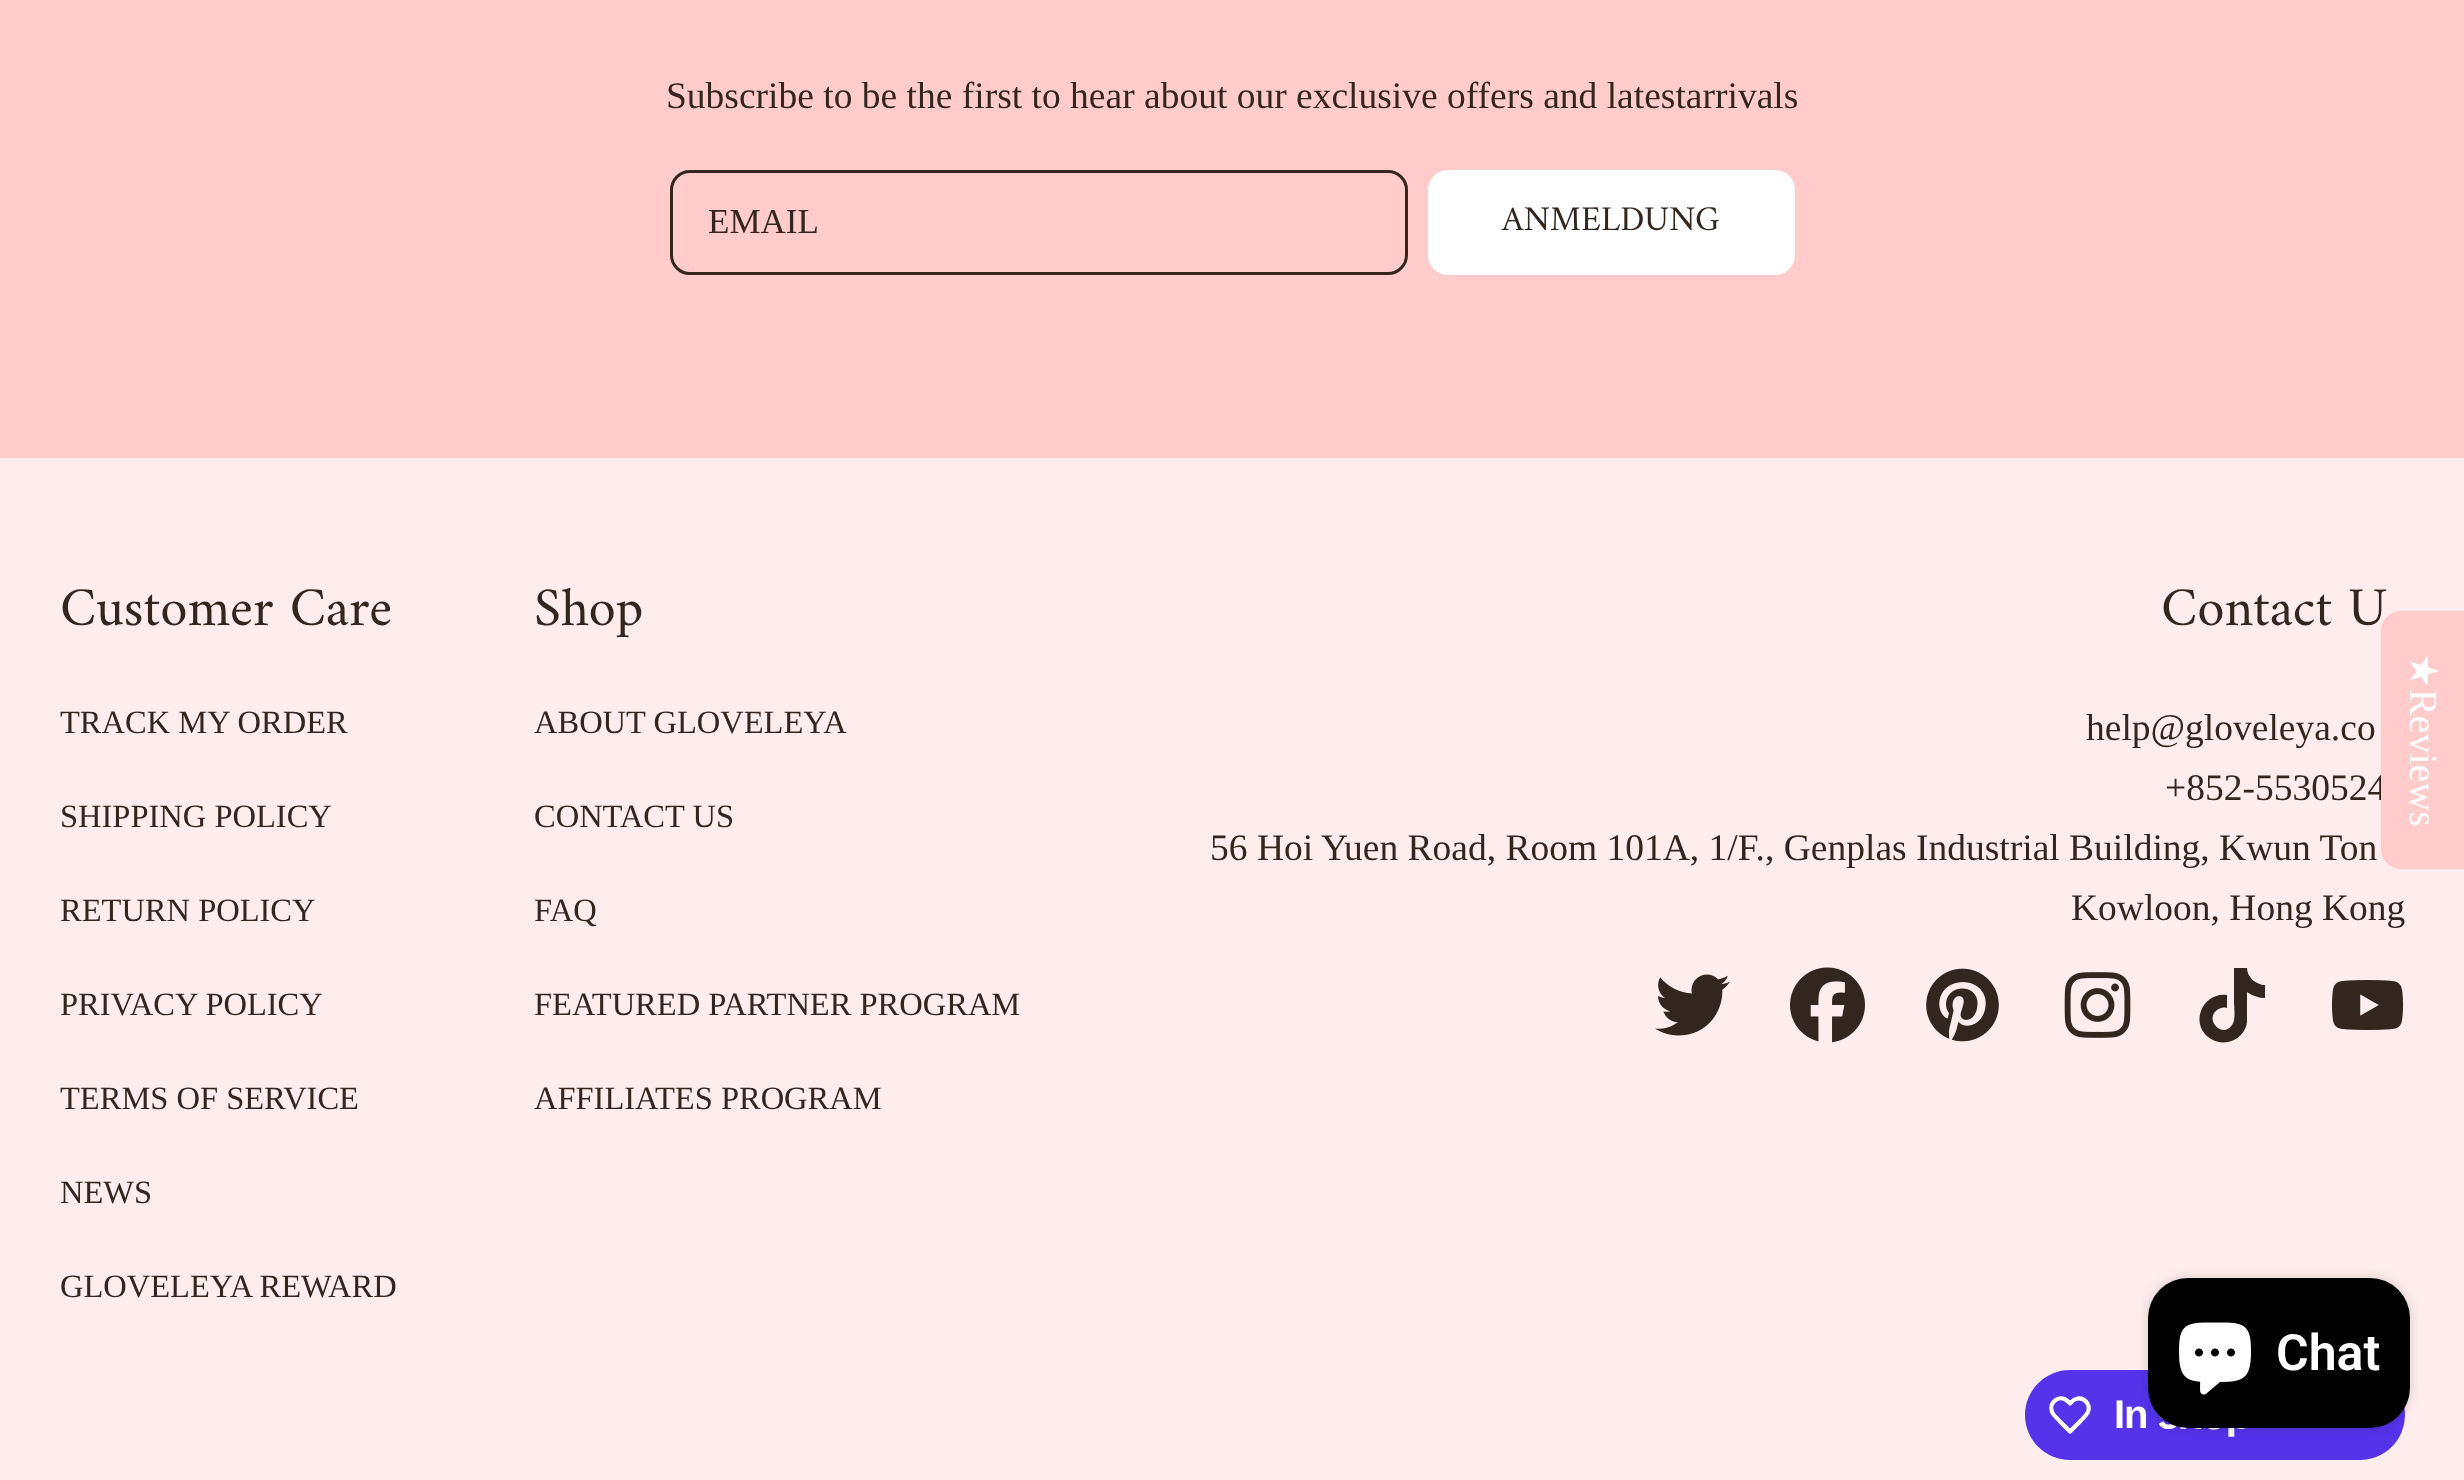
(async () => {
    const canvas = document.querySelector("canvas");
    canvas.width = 2464;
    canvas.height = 1480;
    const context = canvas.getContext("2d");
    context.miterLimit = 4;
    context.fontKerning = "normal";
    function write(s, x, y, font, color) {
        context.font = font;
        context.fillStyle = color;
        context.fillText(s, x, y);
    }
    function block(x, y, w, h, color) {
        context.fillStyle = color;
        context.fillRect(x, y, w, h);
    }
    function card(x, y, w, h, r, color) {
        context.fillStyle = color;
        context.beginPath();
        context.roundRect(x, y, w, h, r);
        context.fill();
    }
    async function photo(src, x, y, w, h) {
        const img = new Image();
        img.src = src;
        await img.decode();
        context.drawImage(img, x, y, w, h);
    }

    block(0, 0, 2464, 1480, "rgb(255, 237, 237)");
    block(0, 0, 2464, 458, "rgb(255, 203, 203)");
    write("Subscribe to be the first to hear about our exclusive offers and latestarrivals", 666, 108, "37.5px Liberation Serif", "rgb(50, 38, 30)");
    context.beginPath();
    context.roundRect(671.5, 171.5, 735, 102, 18.5);
    context.strokeStyle = "rgb(50, 38, 30)";
    context.lineWidth = 3;
    context.stroke();
    write("EMAIL", 708, 233, "35px Liberation Serif", "rgb(50, 38, 30)");
    card(1428, 170, 367, 105, 20, "rgb(255, 255, 255)");
    write("ANMELDUNG", 1502, 230, "35px Amiri", "rgb(50, 38, 30)");
    write("Customer Care", 60, 625, "55px Amiri", "rgb(50, 38, 30)");
    write("TRACK MY ORDER", 60, 733, "32.5px Liberation Serif", "rgb(50, 38, 30)");
    write("SHIPPING POLICY", 60, 827, "32.5px Liberation Serif", "rgb(50, 38, 30)");
    write("RETURN POLICY", 60, 921, "32.5px Liberation Serif", "rgb(50, 38, 30)");
    write("PRIVACY POLICY", 60, 1015, "32.5px Liberation Serif", "rgb(50, 38, 30)");
    write("TERMS OF SERVICE", 60, 1109, "32.5px Liberation Serif", "rgb(50, 38, 30)");
    write("NEWS", 60, 1203, "32.5px Liberation Serif", "rgb(50, 38, 30)");
    write("GLOVELEYA REWARD", 60, 1297, "32.5px Liberation Serif", "rgb(50, 38, 30)");
    write("Shop", 534, 625, "55px Amiri", "rgb(50, 38, 30)");
    write("ABOUT GLOVELEYA", 534, 733, "32.5px Liberation Serif", "rgb(50, 38, 30)");
    write("CONTACT US", 534, 827, "32.5px Liberation Serif", "rgb(50, 38, 30)");
    write("FAQ", 534, 921, "32.5px Liberation Serif", "rgb(50, 38, 30)");
    write("FEATURED PARTNER PROGRAM", 534, 1015, "32.5px Liberation Serif", "rgb(50, 38, 30)");
    write("AFFILIATES PROGRAM", 534, 1109, "32.5px Liberation Serif", "rgb(50, 38, 30)");
    write("Contact U", 2161, 625, "55px Amiri", "rgb(50, 38, 30)");
    write("help@gloveleya.co", 2086, 740, "37.5px Liberation Serif", "rgb(50, 38, 30)");
    write("+852-5530524", 2165, 800, "37.5px Liberation Serif", "rgb(50, 38, 30)");
    write("56 Hoi Yuen Road, Room 101A, 1/F., Genplas Industrial Building, Kwun Ton", 1210, 860, "37.5px Liberation Serif", "rgb(50, 38, 30)");
    write("Kowloon, Hong Kong", 2071, 920, "37.5px Liberation Serif", "rgb(50, 38, 30)");
    await photo("media/1.png", 1655, 974, 75, 62);
    await photo("media/2.png", 1790, 967, 75, 76);
    await photo("media/3.png", 1926, 968, 73, 74);
    await photo("media/4.png", 2064, 972, 67, 66);
    context.beginPath();
    context.moveTo(2265, 998);
    context.bezierCurveTo(2259, 998, 2253, 996, 2247, 992);
    context.lineTo(2247, 1022);
    context.bezierCurveTo(2246, 1032, 2238, 1040, 2228, 1042);
    context.bezierCurveTo(2222, 1043, 2216, 1042, 2211, 1039);
    context.bezierCurveTo(2189, 1026, 2201, 992, 2227, 995);
    context.lineTo(2227, 1008);
    context.bezierCurveTo(2223, 1007, 2220, 1008, 2217, 1010);
    context.bezierCurveTo(2204, 1020, 2223, 1039, 2232, 1025);
    context.bezierCurveTo(2236, 1020, 2234, 1008, 2234, 1002);
    context.lineTo(2234, 968);
    context.lineTo(2247, 968);
    context.bezierCurveTo(2247, 977, 2256, 985, 2265, 985);
    context.closePath();
    context.fill();
    await photo("media/5.png", 2331, 980, 73, 50);
    card(2025, 1370, 380, 90, 45, "rgb(84, 51, 235)");
    context.beginPath();
    context.moveTo(2068, 1401.5);
    context.lineTo(2070, 1403.5);
    context.bezierCurveTo(2072, 1401.5, 2073.5, 1399.5, 2076, 1399);
    context.bezierCurveTo(2084, 1396.5, 2091, 1404.5, 2088, 1412);
    context.bezierCurveTo(2086.5, 1415.5, 2083, 1418, 2080.5, 1421);
    context.lineTo(2070, 1431.5);
    context.lineTo(2059.5, 1421);
    context.bezierCurveTo(2057, 1418, 2053.5, 1415.5, 2052, 1412);
    context.bezierCurveTo(2048, 1402, 2060.5, 1393.5, 2068, 1401.5);
    context.closePath();
    context.strokeStyle = "rgb(255, 255, 255)";
    context.lineWidth = 4.2;
    context.lineJoin = "round";
    context.stroke();
    context.letterSpacing = "-1px";
    write("In", 2114, 1428, "bold 40px Liberation Sans", "rgb(255, 255, 255)");
    await photo("media/6.png", 2158, 1414, 88, 23);
    context.fillStyle = "rgb(255, 203, 203)";
    context.beginPath();
    context.moveTo(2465, 611);
    context.lineTo(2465, 869);
    context.lineTo(2401, 869);
    context.bezierCurveTo(2390, 869, 2381, 860, 2381, 849);
    context.lineTo(2381, 631);
    context.bezierCurveTo(2381, 620, 2390, 611, 2401, 611);
    context.closePath();
    context.fill();
    context.letterSpacing = "0px";
    context.font = "40px DejaVu Sans";
    context.fillStyle = "rgb(255, 255, 255)";
    context.save();
    context.translate(2410, 653);
    context.rotate(90 * Math.PI / 180);
    context.fillText("★", 0, 0);
    context.restore();
    context.font = "40px Liberation Serif";
    context.save();
    context.translate(2410, 689);
    context.rotate(90 * Math.PI / 180);
    context.fillText("Reviews", 0, 0);
    context.restore();
    context.fillStyle = "rgba(0, 0, 0, 0.15)";
    context.filter = "blur(6px)";
    context.beginPath();
    context.roundRect(2148, 1278, 262, 150, 40);
    context.fill();
    context.filter = "none";
    card(2148, 1278, 262, 150, 40, "rgb(0, 0, 0)");
    await photo("media/7.png", 2179, 1322, 72, 73);
    write("Chat", 2276, 1370, "600 50px Roboto", "rgb(255, 255, 255)");
})();
